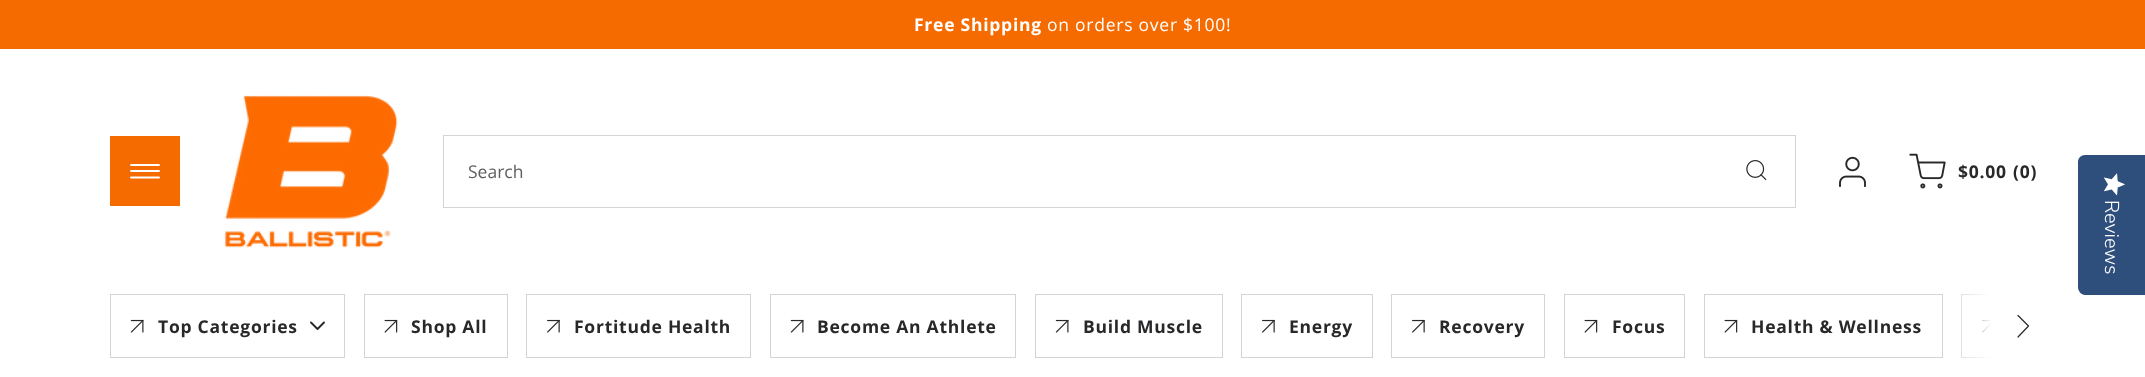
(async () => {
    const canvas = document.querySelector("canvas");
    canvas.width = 2145;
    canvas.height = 377;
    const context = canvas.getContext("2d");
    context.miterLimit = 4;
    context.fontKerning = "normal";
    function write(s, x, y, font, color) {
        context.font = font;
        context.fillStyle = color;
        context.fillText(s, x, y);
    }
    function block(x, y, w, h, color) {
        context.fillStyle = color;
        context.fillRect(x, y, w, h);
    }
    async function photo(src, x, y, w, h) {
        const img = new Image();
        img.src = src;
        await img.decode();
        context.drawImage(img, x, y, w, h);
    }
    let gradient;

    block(0, 0, 2145, 377, "rgb(255, 255, 255)");
    block(0, 0, 2145, 49, "rgb(246, 107, 0)");
    context.letterSpacing = "0.75px";
    write("Free Shipping", 914, 31, "bold 17.5px Open Sans", "rgb(255, 255, 255)");
    write("on orders over $100!", 1047, 31, "17.5px Open Sans", "rgb(255, 255, 255)");
    block(110, 136, 70, 70, "rgb(246, 107, 0)");
    context.beginPath();
    context.moveTo(159, 171);
    context.lineTo(131, 171);
    context.moveTo(159, 165);
    context.lineTo(131, 165);
    context.moveTo(159, 177.5);
    context.lineTo(131, 177.5);
    context.strokeStyle = "rgb(255, 255, 255)";
    context.lineWidth = 1.9;
    context.lineCap = "round";
    context.lineJoin = "round";
    context.stroke();
    await photo("media/1.png", 224, 95, 174, 153);
    await photo("media/2.png", 1746, 160, 21, 21);
    context.strokeStyle = "rgb(212, 212, 212)";
    context.lineWidth = 1;
    context.lineJoin = "miter";
    context.strokeRect(443.5, 135.5, 1352, 72);
    context.letterSpacing = "0px";
    write("Search", 468, 178, "17.5px Open Sans", "rgb(94, 94, 95)");
    await photo("media/3.png", 1839, 156, 27, 31);
    await photo("media/4.png", 1909, 153, 37, 36);
    context.letterSpacing = "0.75px";
    write("$0.00", 1958, 178, "bold 17.5px Open Sans", "rgb(40, 40, 42)");
    write("(0)", 2013, 178, "bold 17.5px Open Sans", "rgb(40, 40, 42)");
    context.strokeRect(110.5, 294.5, 234, 63);
    await photo("media/5.png", 130, 319, 14, 14);
    write("Top Categories", 158, 333, "bold 17.5px Open Sans", "rgb(40, 40, 42)");
    context.beginPath();
    context.moveTo(324, 322.5);
    context.lineTo(317.5, 329);
    context.lineTo(311, 322.5);
    context.strokeStyle = "rgb(40, 40, 42)";
    context.lineWidth = 1.9;
    context.lineJoin = "round";
    context.stroke();
    context.strokeStyle = "rgb(212, 212, 212)";
    context.lineWidth = 1;
    context.lineJoin = "miter";
    context.strokeRect(364.5, 294.5, 143, 63);
    await photo("media/6.png", 384, 319, 14, 14);
    write("Shop All", 411, 333, "bold 17.5px Open Sans", "rgb(40, 40, 42)");
    context.strokeRect(526.5, 294.5, 224, 63);
    await photo("media/7.png", 547, 319, 13, 14);
    write("Fortitude Health", 574, 333, "bold 17.5px Open Sans", "rgb(40, 40, 42)");
    context.strokeRect(770.5, 294.5, 245, 63);
    await photo("media/5.png", 790, 319, 14, 14);
    write("Become An Athlete", 817, 333, "bold 17.5px Open Sans", "rgb(40, 40, 42)");
    context.strokeRect(1035.5, 294.5, 187, 63);
    await photo("media/5.png", 1055, 319, 14, 14);
    write("Build Muscle", 1083, 333, "bold 17.5px Open Sans", "rgb(40, 40, 42)");
    context.strokeRect(1241.5, 294.5, 131, 63);
    await photo("media/7.png", 1262, 319, 13, 14);
    write("Energy", 1289, 333, "bold 17.5px Open Sans", "rgb(40, 40, 42)");
    context.strokeRect(1391.5, 294.5, 153, 63);
    await photo("media/7.png", 1412, 319, 13, 14);
    write("Recovery", 1439, 333, "bold 17.5px Open Sans", "rgb(40, 40, 42)");
    context.strokeRect(1564.5, 294.5, 120, 63);
    await photo("media/6.png", 1584, 319, 14, 14);
    write("Focus", 1612, 333, "bold 17.5px Open Sans", "rgb(40, 40, 42)");
    context.strokeRect(1704.5, 294.5, 238, 63);
    await photo("media/6.png", 1724, 319, 14, 14);
    write("Health & Wellness", 1751, 333, "bold 17.5px Open Sans", "rgb(40, 40, 42)");
    context.save();
    context.beginPath();
    context.rect(110, 294, 1925, 64);
    context.clip();
    context.strokeRect(1961.5, 294.5, 147, 63);
    context.restore();
    await photo("media/8.png", 1982, 319, 9, 14);
    gradient = context.createLinearGradient(1948, 326, 2035, 326);
    gradient.addColorStop(0, "rgba(255, 255, 255, 0)");
    gradient.addColorStop(0.5, "rgb(255, 255, 255)");
    context.fillStyle = gradient;
    context.fillRect(1961, 294, 74, 64);
    context.beginPath();
    context.moveTo(2018, 337);
    context.lineTo(2028.5, 326);
    context.lineTo(2018, 315.5);
    context.strokeStyle = "rgb(40, 40, 42)";
    context.lineWidth = 1.2;
    context.lineJoin = "round";
    context.stroke();
    context.fillStyle = "rgb(46, 79, 124)";
    context.beginPath();
    context.moveTo(2145, 155);
    context.lineTo(2145, 295);
    context.lineTo(2085, 295);
    context.bezierCurveTo(2081, 295, 2078, 291, 2078, 287);
    context.lineTo(2078, 162);
    context.bezierCurveTo(2078, 158, 2081, 155, 2085, 155);
    context.closePath();
    context.fill();
    await photo("media/9.png", 2103, 173, 22, 23);
    context.letterSpacing = "0px";
    context.font = "300 20px Nunito Sans";
    context.fillStyle = "rgb(255, 255, 255)";
    context.save();
    context.translate(2105, 200);
    context.rotate(90 * Math.PI / 180);
    context.fillText("Reviews", 0, 0);
    context.restore();
})();
